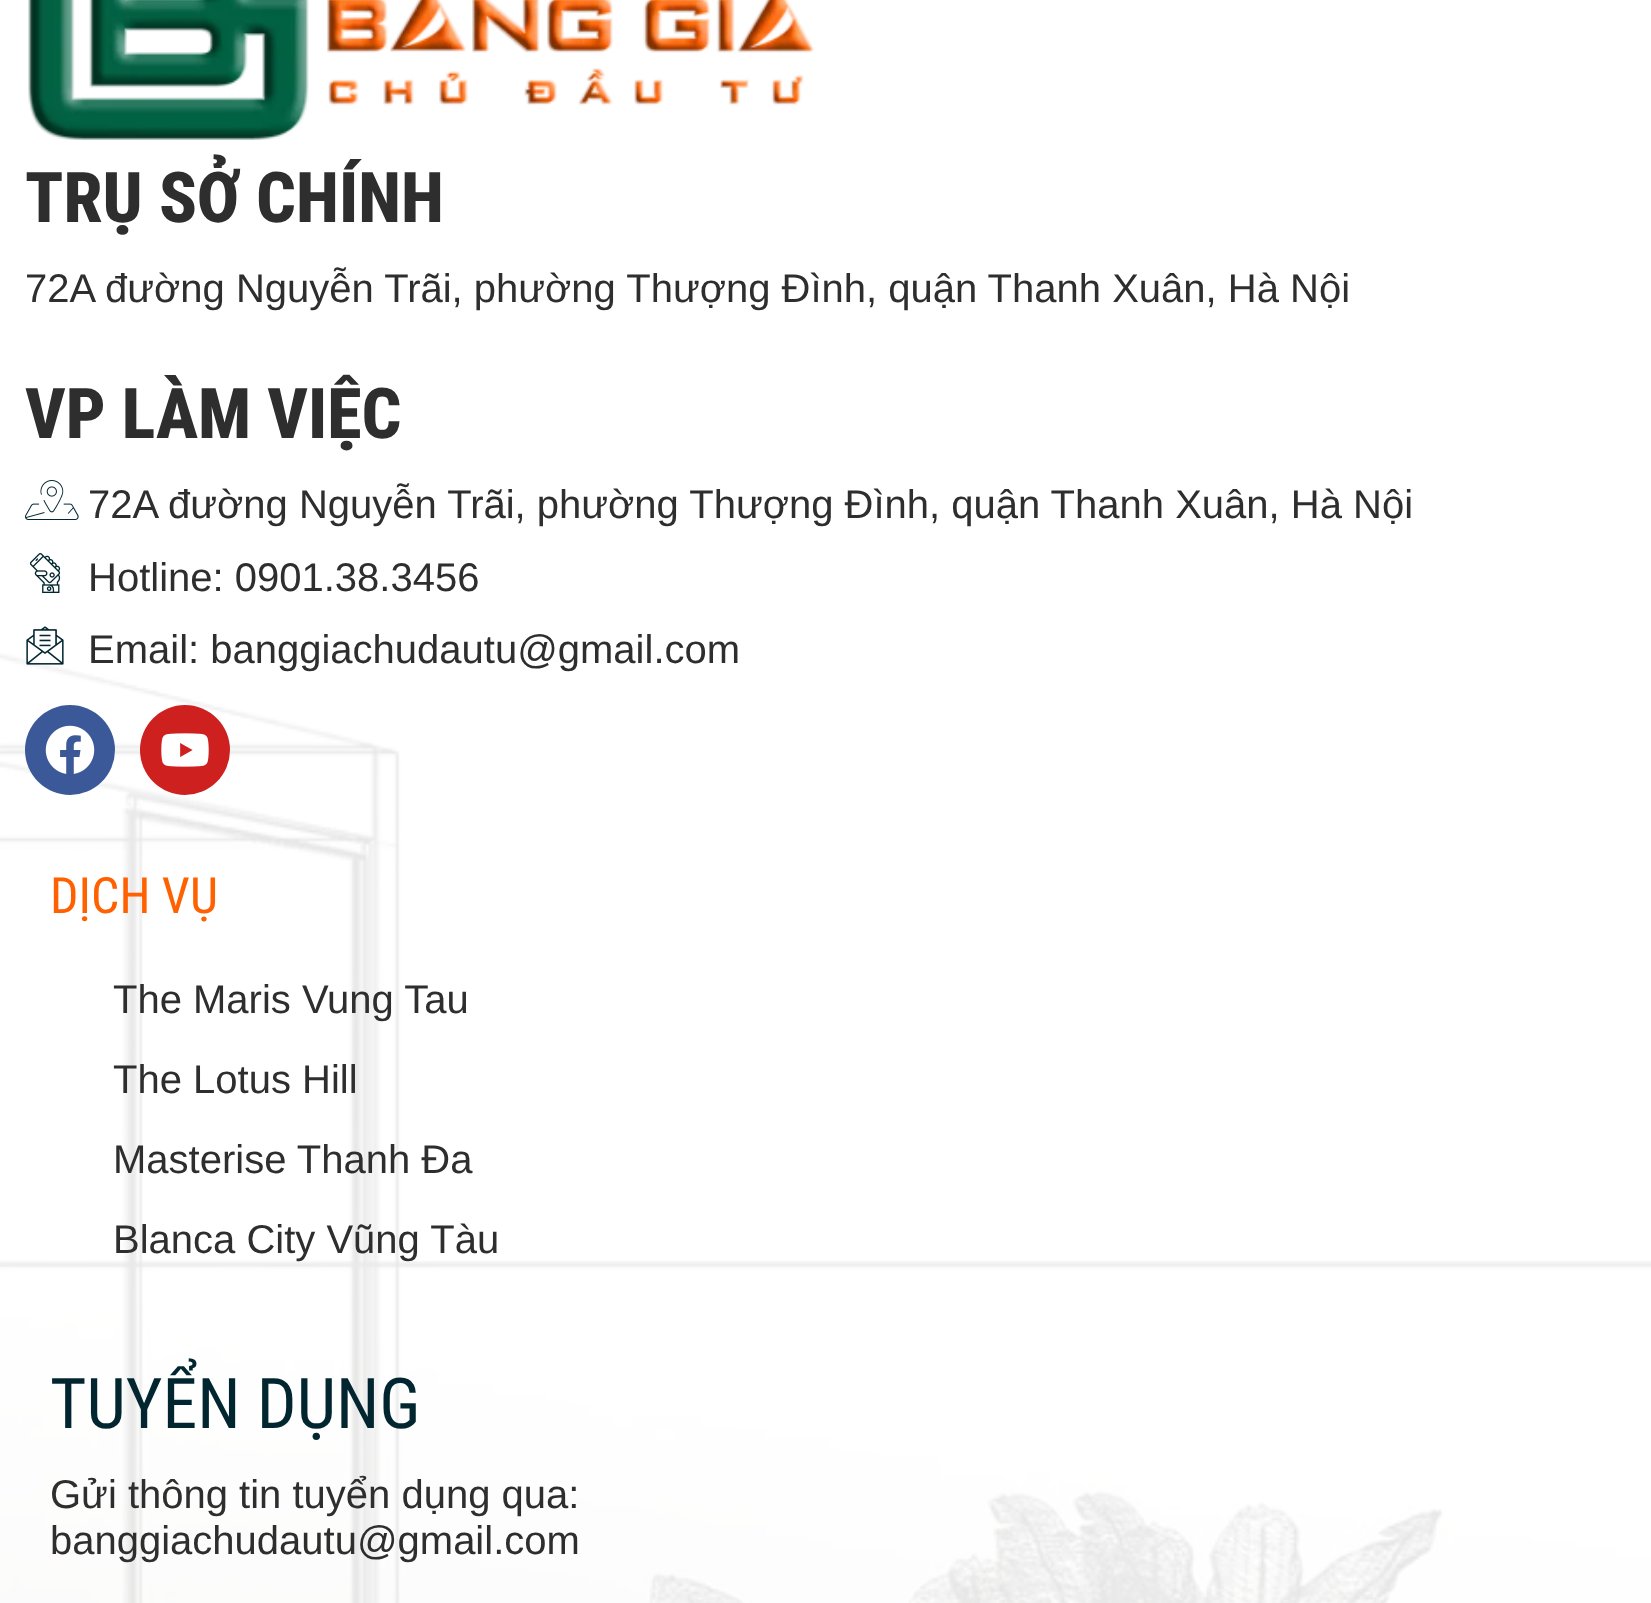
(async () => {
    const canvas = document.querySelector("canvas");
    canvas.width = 1651;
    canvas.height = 1603;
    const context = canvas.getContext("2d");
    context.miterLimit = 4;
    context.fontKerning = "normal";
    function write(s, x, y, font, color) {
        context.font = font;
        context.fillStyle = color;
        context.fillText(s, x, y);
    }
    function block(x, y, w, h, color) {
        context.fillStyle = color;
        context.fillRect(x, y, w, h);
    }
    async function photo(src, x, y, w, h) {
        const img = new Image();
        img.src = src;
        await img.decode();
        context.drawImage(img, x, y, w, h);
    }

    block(0, 0, 1651, 1603, "rgb(255, 255, 255)");
    await photo("media/1.png", 0, 652, 1651, 951);
    await photo("media/2.png", 28, 0, 786, 140);
    write("TRỤ SỞ CHÍNH", 25, 222, "800 70px Roboto Condensed", "rgb(46, 46, 46)");
    write("72A đường Nguyễn Trãi, phường Thượng Đình, quận Thanh Xuân, Hà Nội", 25, 302, "40px Liberation Sans", "rgb(46, 46, 46)");
    write("VP LÀM VIỆC", 25, 438, "800 70px Roboto Condensed", "rgb(46, 46, 46)");
    await photo("media/3.png", 25, 480, 54, 40);
    write("72A đường Nguyễn Trãi, phường Thượng Đình, quận Thanh Xuân, Hà Nội", 88, 518, "40px Liberation Sans", "rgb(46, 46, 46)");
    await photo("media/4.png", 29, 553, 32, 40);
    write("Hotline: 0901.38.3456", 88, 591, "40px Liberation Sans", "rgb(46, 46, 46)");
    await photo("media/5.png", 26, 626, 38, 39);
    write("Email: banggiachudautu@gmail.com", 88, 663, "40px Liberation Sans", "rgb(46, 46, 46)");
    context.fillStyle = "rgb(59, 89, 152)";
    context.beginPath();
    context.arc(70, 750, 45, 0, Math.PI * 2);
    context.fill();
    await photo("media/6.png", 45, 725, 50, 49);
    context.fillStyle = "rgb(205, 32, 31)";
    context.beginPath();
    context.arc(185, 750, 45, 0, Math.PI * 2);
    context.fill();
    await photo("media/7.png", 161, 733, 48, 34);
    write("DỊCH VỤ", 50, 913, "50px Roboto Condensed", "rgb(255, 96, 0)");
    write("The Maris Vung Tau", 113, 1013, "40px Liberation Sans", "rgb(46, 46, 46)");
    write("The Lotus Hill", 113, 1093, "40px Liberation Sans", "rgb(46, 46, 46)");
    write("Masterise Thanh Đa", 113, 1173, "40px Liberation Sans", "rgb(46, 46, 46)");
    write("Blanca City Vũng Tàu", 113, 1253, "40px Liberation Sans", "rgb(46, 46, 46)");
    write("TUYỂN DỤNG", 50, 1428, "70px Roboto Condensed", "rgb(1, 38, 48)");
    write("Gửi thông tin tuyển dụng qua:", 50, 1508, "40px Liberation Sans", "rgb(46, 46, 46)");
    write("banggiachudautu@gmail.com", 50, 1554, "40px Liberation Sans", "rgb(46, 46, 46)");
})();
